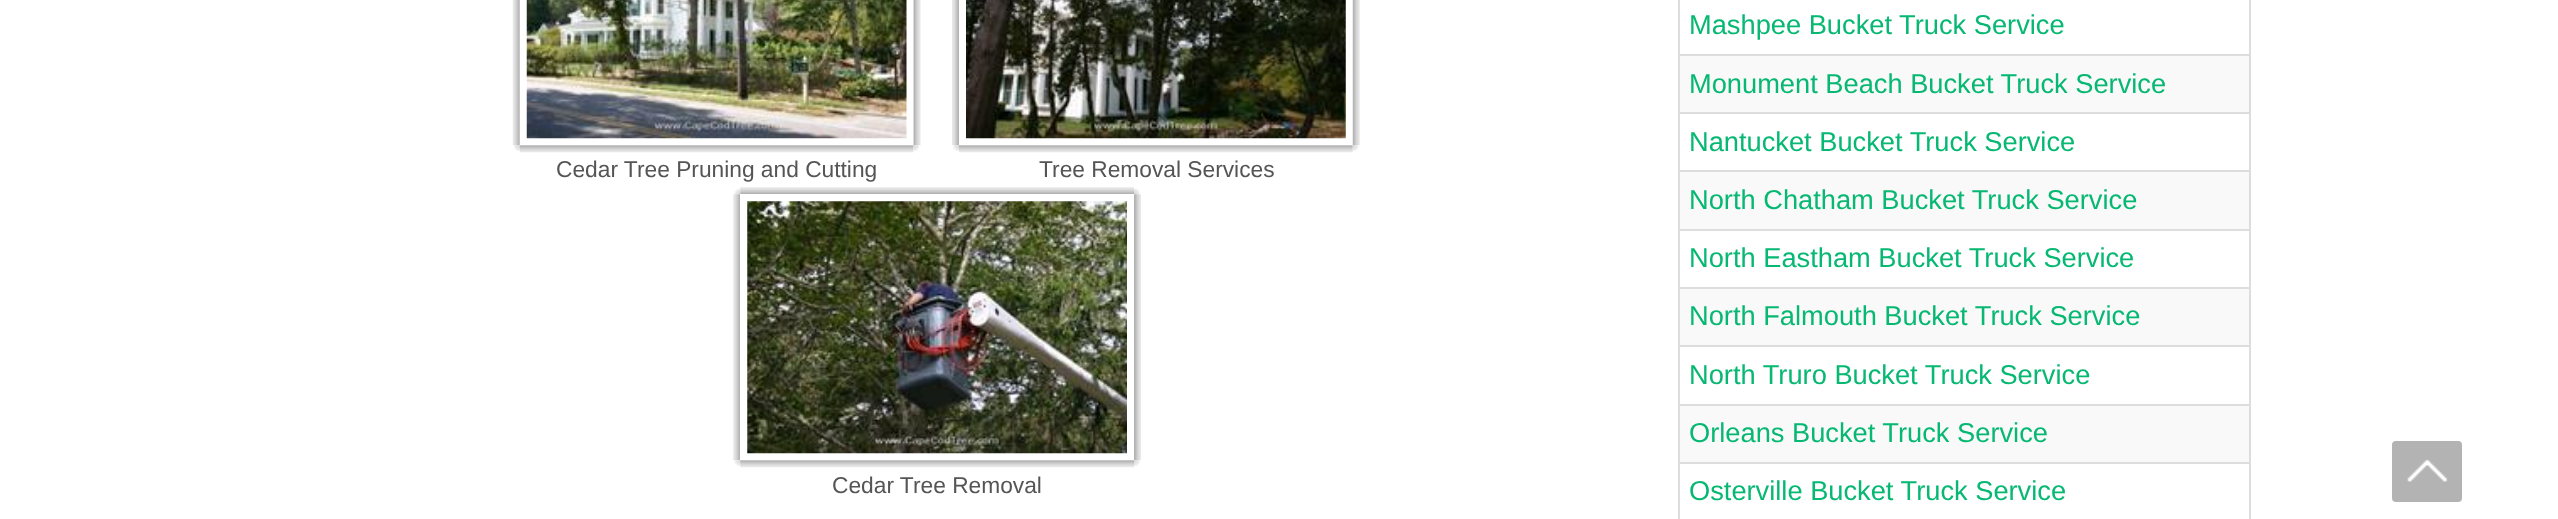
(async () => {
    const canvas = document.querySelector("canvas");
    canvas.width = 2558;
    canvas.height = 519;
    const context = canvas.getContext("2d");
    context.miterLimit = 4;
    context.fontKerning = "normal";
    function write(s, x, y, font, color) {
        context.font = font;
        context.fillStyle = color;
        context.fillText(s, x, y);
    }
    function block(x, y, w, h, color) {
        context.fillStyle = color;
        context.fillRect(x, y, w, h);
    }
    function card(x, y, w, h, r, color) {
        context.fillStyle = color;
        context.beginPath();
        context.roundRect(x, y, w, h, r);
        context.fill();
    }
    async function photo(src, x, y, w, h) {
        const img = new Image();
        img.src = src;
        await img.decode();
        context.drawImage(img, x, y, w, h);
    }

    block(0, 0, 2558, 519, "rgb(255, 255, 255)");
    await photo("media/1.png", 512, 0, 8, 146);
    await photo("media/2.png", 526, 0, 381, 139);
    await photo("media/3.png", 913, 0, 8, 146);
    await photo("media/4.png", 514, 145, 6, 6);
    await photo("media/5.png", 519, 145, 395, 8);
    await photo("media/6.png", 914, 145, 5, 6);
    write("Cedar Tree Pruning and Cutting", 556, 177, "22.75px Liberation Sans", "rgb(85, 85, 85)");
    await photo("media/7.png", 952, 0, 7, 146);
    await photo("media/8.png", 966, 0, 380, 139);
    await photo("media/9.png", 1352, 0, 8, 146);
    await photo("media/10.png", 953, 145, 6, 6);
    await photo("media/11.png", 959, 145, 394, 8);
    await photo("media/12.png", 1352, 145, 7, 6);
    write("Tree Removal Services", 1039, 177, "22.75px Liberation Sans", "rgb(85, 85, 85)");
    await photo("media/13.png", 734, 188, 7, 7);
    await photo("media/14.png", 740, 187, 394, 7);
    await photo("media/15.png", 1134, 188, 6, 7);
    await photo("media/16.png", 733, 194, 8, 267);
    context.strokeStyle = "rgb(255, 255, 255)";
    context.lineWidth = 7;
    context.strokeRect(743.5, 197.5, 387, 259);
    await photo("media/17.png", 747, 201, 380, 253);
    await photo("media/18.png", 1134, 194, 7, 267);
    await photo("media/19.png", 734, 460, 7, 6);
    await photo("media/20.png", 740, 460, 394, 8);
    await photo("media/21.png", 1134, 460, 6, 6);
    write("Cedar Tree Removal", 832, 493, "22.75px Liberation Sans", "rgb(85, 85, 85)");
    block(2249, 0, 2, 519, "rgb(221, 221, 221)");
    block(1678, 0, 2, 519, "rgb(221, 221, 221)");
    write("Mashpee Bucket Truck Service", 1689, 34, "27.25px Liberation Sans", "rgb(7, 184, 115)");
    block(1680, 56, 569, 56, "rgb(249, 249, 249)");
    block(1678, 54, 573, 2, "rgb(221, 221, 221)");
    write("Monument Beach Bucket Truck Service", 1689, 93, "27.25px Liberation Sans", "rgb(7, 184, 115)");
    block(1678, 112, 573, 2, "rgb(221, 221, 221)");
    write("Nantucket Bucket Truck Service", 1689, 151, "27.25px Liberation Sans", "rgb(7, 184, 115)");
    block(1680, 172, 569, 57, "rgb(249, 249, 249)");
    block(1678, 170, 573, 2, "rgb(221, 221, 221)");
    write("North Chatham Bucket Truck Service", 1689, 209, "27.25px Liberation Sans", "rgb(7, 184, 115)");
    block(1678, 229, 573, 2, "rgb(221, 221, 221)");
    write("North Eastham Bucket Truck Service", 1689, 267, "27.25px Liberation Sans", "rgb(7, 184, 115)");
    block(1680, 289, 569, 56, "rgb(249, 249, 249)");
    block(1678, 287, 573, 2, "rgb(221, 221, 221)");
    write("North Falmouth Bucket Truck Service", 1689, 325, "27.25px Liberation Sans", "rgb(7, 184, 115)");
    block(1678, 345, 573, 2, "rgb(221, 221, 221)");
    write("North Truro Bucket Truck Service", 1689, 384, "27.25px Liberation Sans", "rgb(7, 184, 115)");
    block(1680, 406, 569, 56, "rgb(249, 249, 249)");
    block(1678, 404, 573, 2, "rgb(221, 221, 221)");
    write("Orleans Bucket Truck Service", 1689, 442, "27.25px Liberation Sans", "rgb(7, 184, 115)");
    block(1678, 462, 573, 2, "rgb(221, 221, 221)");
    write("Osterville Bucket Truck Service", 1689, 500, "27.25px Liberation Sans", "rgb(7, 184, 115)");
    card(2392, 441, 70, 61, 4, "rgb(179, 179, 179)");
    await photo("media/22.png", 2407, 459, 41, 23);
})();
